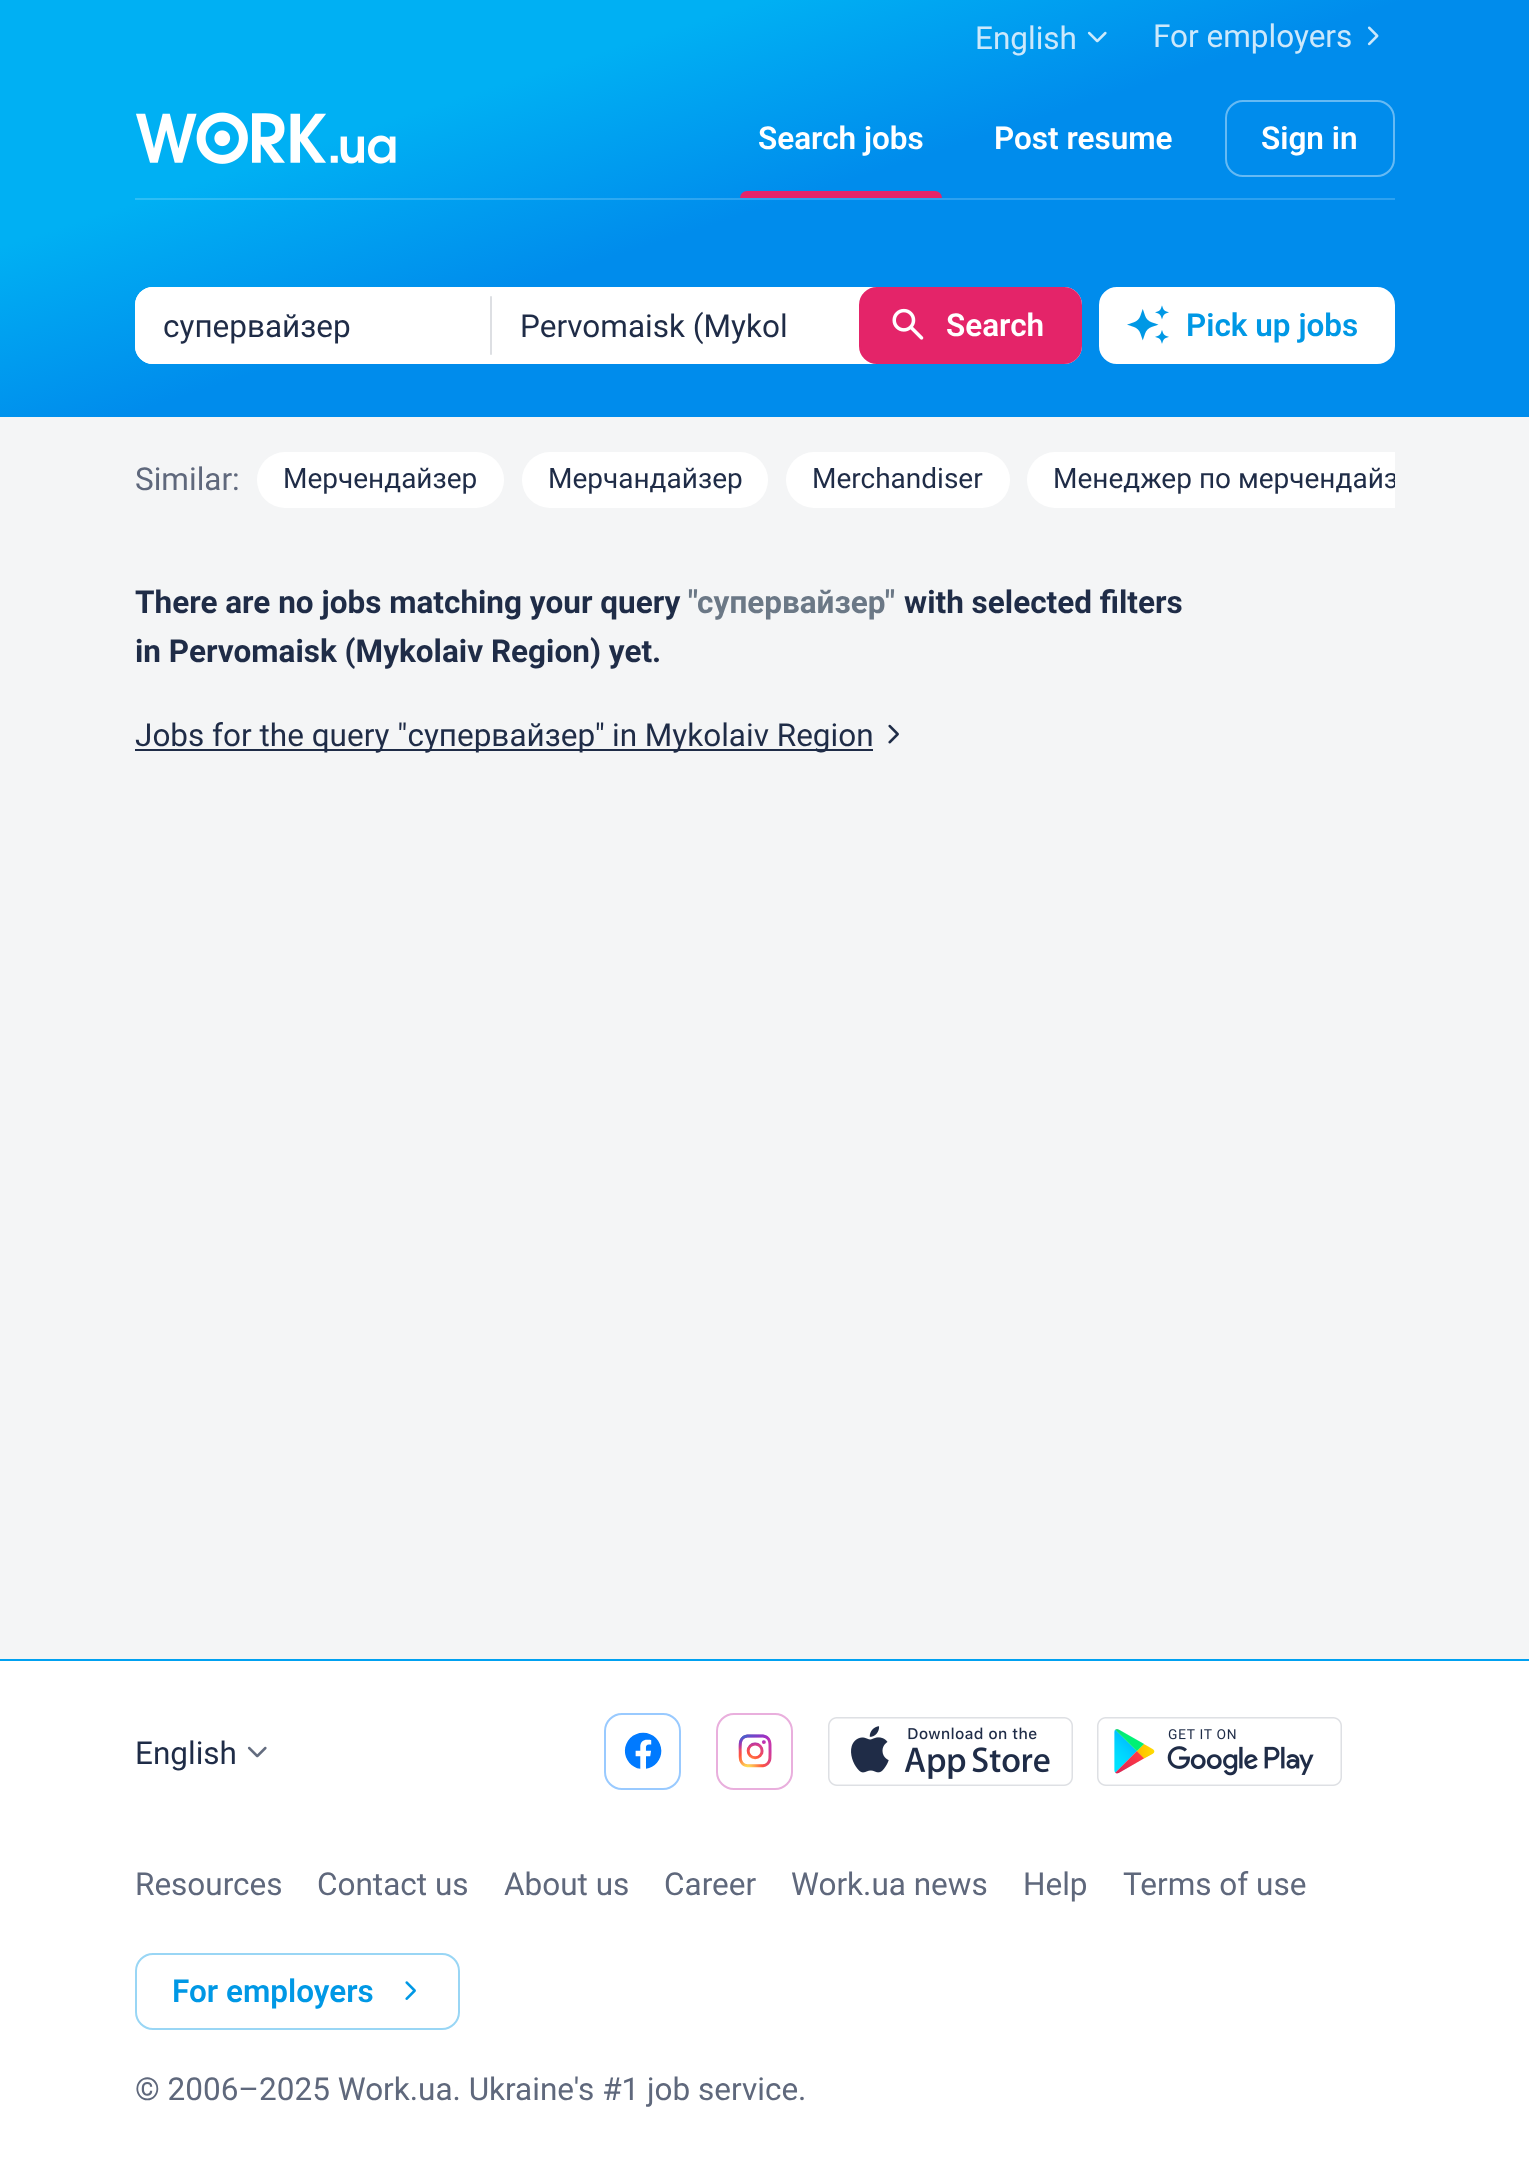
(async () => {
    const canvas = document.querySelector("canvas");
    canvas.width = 1529;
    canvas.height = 2166;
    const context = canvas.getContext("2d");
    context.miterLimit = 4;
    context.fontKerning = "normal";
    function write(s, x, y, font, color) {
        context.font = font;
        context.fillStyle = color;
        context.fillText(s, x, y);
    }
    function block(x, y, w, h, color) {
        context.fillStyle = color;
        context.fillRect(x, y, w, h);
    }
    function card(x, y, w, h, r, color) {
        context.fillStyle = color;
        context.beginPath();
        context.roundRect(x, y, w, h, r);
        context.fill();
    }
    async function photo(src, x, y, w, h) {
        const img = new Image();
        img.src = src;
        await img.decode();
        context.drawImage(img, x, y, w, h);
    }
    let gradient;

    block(0, 0, 1529, 2166, "rgb(255, 255, 255)");
    gradient = context.createLinearGradient(631, -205, 899, 621);
    gradient.addColorStop(0.27, "rgb(0, 176, 243)");
    gradient.addColorStop(0.5, "rgb(0, 140, 236)");
    context.fillStyle = gradient;
    context.fillRect(0, 0, 1529, 417);
    gradient = context.createLinearGradient(631, -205, 899, 621);
    gradient.addColorStop(0.27, "rgb(45, 190, 245)");
    gradient.addColorStop(0.5, "rgb(45, 161, 240)");
    context.fillStyle = gradient;
    context.fillRect(135, 198, 1260, 2);
    write("English", 975, 49, "31.5px Roboto", "rgb(204, 232, 251)");
    await photo("media/1.png", 1087, 31, 20, 12);
    write("For employers", 1153, 47, "31.5px Roboto", "rgb(204, 232, 251)");
    await photo("media/2.png", 1367, 26, 12, 20);
    await photo("media/3.png", 136, 112, 260, 52);
    write("Search jobs", 758, 149, "600 31.5px Roboto", "rgb(255, 255, 255)");
    context.fillStyle = "rgb(228, 36, 105)";
    context.beginPath();
    context.roundRect(740, 191, 202, 7, [7, 7, 0, 0]);
    context.fill();
    write("Post resume", 994, 149, "600 31.5px Roboto", "rgb(255, 255, 255)");
    context.beginPath();
    context.roundRect(1226, 101, 168, 75, 17);
    context.strokeStyle = "rgb(102, 186, 244)";
    context.lineWidth = 2;
    context.stroke();
    write("Sign in", 1261, 149, "600 31.5px Roboto", "rgb(255, 255, 255)");
    card(135, 287, 947, 77, 18, "rgb(255, 255, 255)");
    card(135, 287, 357, 77, 18, "rgb(255, 255, 255)");
    write("супервайзер", 163, 337, "31.5px Roboto", "rgb(31, 44, 71)");
    card(490, 296, 2, 59, 1, "rgb(221, 223, 227)");
    write("Pervomaisk (Mykol", 520, 337, "31.5px Roboto", "rgb(31, 44, 71)");
    context.fillStyle = "rgb(228, 36, 105)";
    context.beginPath();
    context.roundRect(860, 288, 221, 75, 17);
    context.fill();
    context.strokeStyle = "rgb(228, 36, 105)";
    context.stroke();
    await photo("media/4.png", 892, 308, 32, 32);
    write("Search", 946, 336, "600 31.5px Roboto", "rgb(255, 255, 255)");
    context.beginPath();
    context.roundRect(1100, 288, 294, 75, 17);
    context.fill();
    context.strokeStyle = "rgb(255, 255, 255)";
    context.stroke();
    await photo("media/5.png", 1127, 305, 42, 39);
    write("Pick up jobs", 1186, 336, "600 31.5px Roboto", "rgb(0, 152, 229)");
    block(0, 417, 1529, 1242, "rgb(244, 245, 246)");
    write("Similar:", 135, 490, "31.5px Roboto", "rgb(95, 104, 124)");
    card(257, 452, 247, 56, 28, "rgb(255, 255, 255)");
    write("Мерчендайзер", 283, 488, "28px Roboto", "rgb(31, 44, 71)");
    card(522, 452, 246, 56, 28, "rgb(255, 255, 255)");
    write("Мерчандайзер", 548, 488, "28px Roboto", "rgb(31, 44, 71)");
    card(786, 452, 224, 56, 28, "rgb(255, 255, 255)");
    write("Merchandiser", 812, 488, "28px Roboto", "rgb(31, 44, 71)");
    context.fillStyle = "rgb(255, 255, 255)";
    context.beginPath();
    context.roundRect(1027, 452, 368, 56, [28, 0, 0, 28]);
    context.fill();
    context.save();
    context.beginPath();
    context.rect(135, 452, 1260, 73);
    context.clip();
    write("Менеджер по мерчендайз", 1053, 488, "28px Roboto", "rgb(31, 44, 71)");
    context.restore();
    write("There are no jobs matching your query", 135, 613, "bold 31.5px Roboto", "rgb(31, 44, 71)");
    write("\"супервайзер\"", 688, 613, "bold 31.5px Roboto", "rgb(107, 120, 134)");
    write("with selected filters", 904, 613, "bold 31.5px Roboto", "rgb(31, 44, 71)");
    write("in Pervomaisk (Mykolaiv Region) yet.", 135, 662, "bold 31.5px Roboto", "rgb(31, 44, 71)");
    block(135, 749, 738, 2, "rgb(31, 44, 71)");
    write("Jobs for the query \"супервайзер\"", 135, 746, "31.5px Roboto", "rgb(31, 44, 71)");
    write("in Mykolaiv Region", 612, 746, "31.5px Roboto", "rgb(31, 44, 71)");
    await photo("media/6.png", 888, 724, 11, 20);
    block(0, 1659, 1529, 2, "rgb(0, 161, 241)");
    write("English", 135, 1764, "31.5px Roboto", "rgb(31, 44, 71)");
    await photo("media/7.png", 247, 1746, 20, 12);
    context.beginPath();
    context.roundRect(605, 1714, 75, 75, 17);
    context.strokeStyle = "rgb(153, 202, 255)";
    context.stroke();
    await photo("media/8.png", 624, 1732, 38, 37);
    context.beginPath();
    context.roundRect(717, 1714, 75, 75, 17);
    context.strokeStyle = "rgb(233, 175, 221)";
    context.stroke();
    await photo("media/9.png", 738, 1734, 34, 34);
    await photo("media/10.png", 828, 1717, 245, 69);
    await photo("media/11.png", 1097, 1717, 245, 69);
    write("Resources", 135, 1895, "31.5px Roboto", "rgb(95, 104, 124)");
    write("Contact us", 317, 1895, "31.5px Roboto", "rgb(95, 104, 124)");
    write("About us", 504, 1895, "31.5px Roboto", "rgb(95, 104, 124)");
    write("Сareer", 664, 1895, "31.5px Roboto", "rgb(95, 104, 124)");
    write("Work.ua news", 791, 1895, "31.5px Roboto", "rgb(95, 104, 124)");
    write("Help", 1023, 1895, "31.5px Roboto", "rgb(95, 104, 124)");
    write("Terms of use", 1123, 1895, "31.5px Roboto", "rgb(95, 104, 124)");
    context.beginPath();
    context.roundRect(136, 1954, 323, 75, 17);
    context.strokeStyle = "rgb(153, 214, 245)";
    context.stroke();
    write("For employers", 172, 2002, "600 31.5px Roboto", "rgb(0, 152, 229)");
    await photo("media/12.png", 405, 1981, 11, 19);
    write("© 2006–2025 Work.ua. Ukraine's #1 job service.", 135, 2100, "31.5px Roboto", "rgb(95, 104, 124)");
})();
